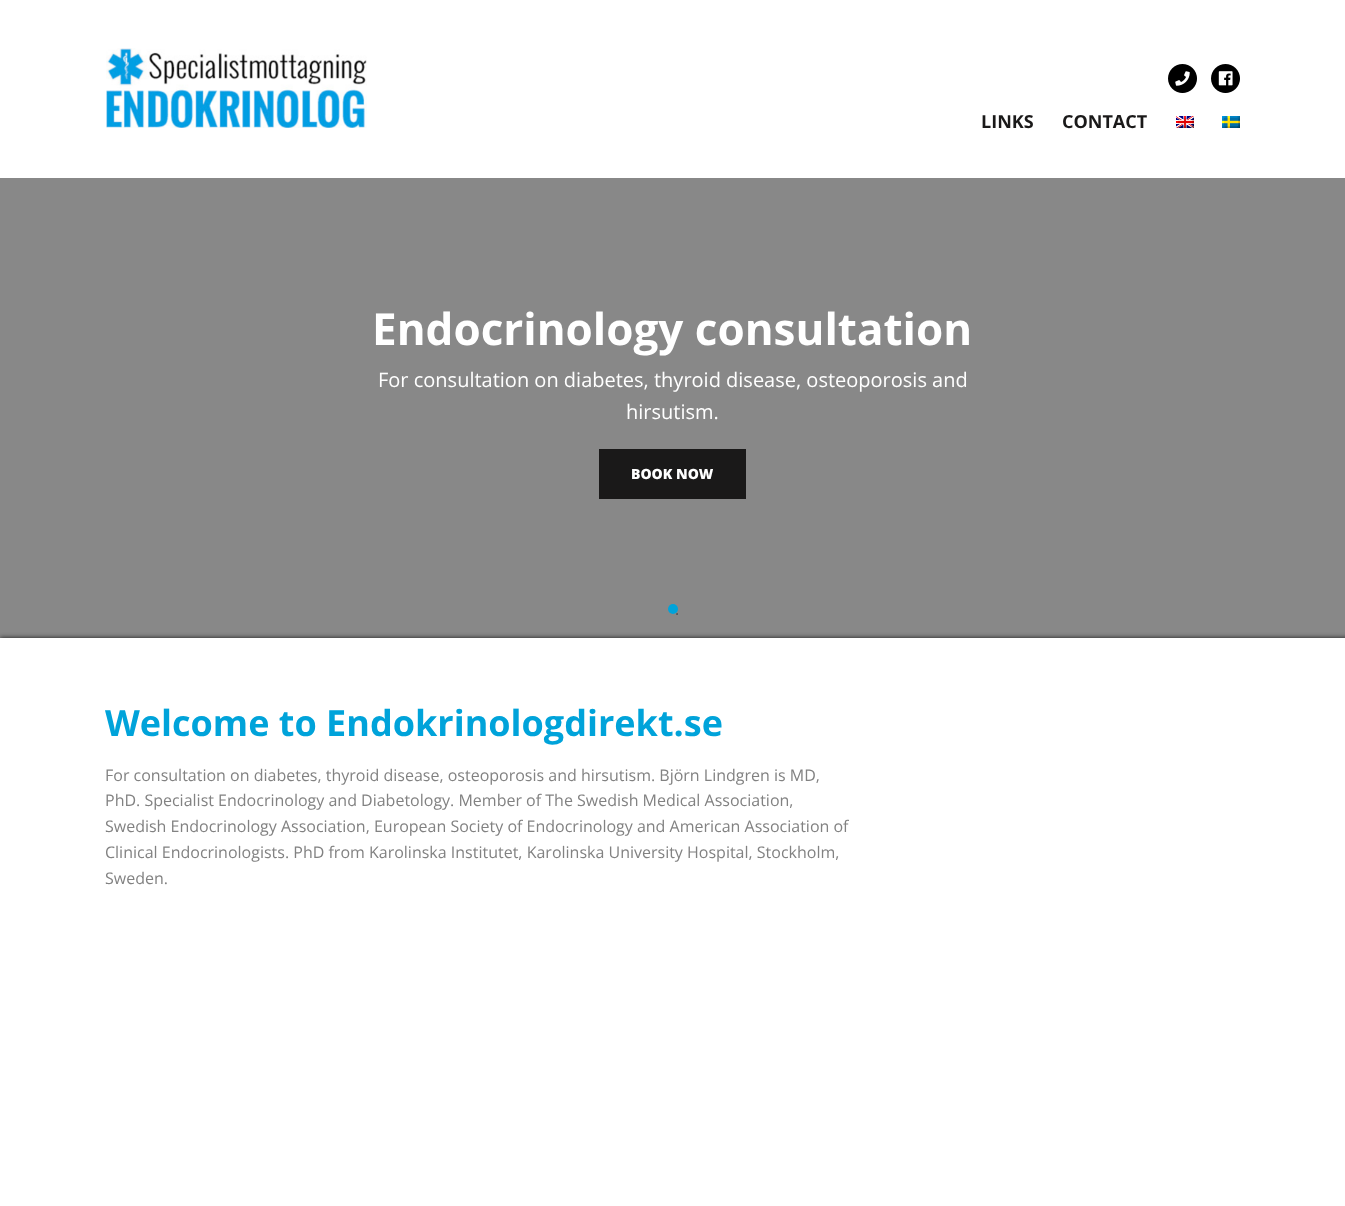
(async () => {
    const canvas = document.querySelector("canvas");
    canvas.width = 1345;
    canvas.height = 1206;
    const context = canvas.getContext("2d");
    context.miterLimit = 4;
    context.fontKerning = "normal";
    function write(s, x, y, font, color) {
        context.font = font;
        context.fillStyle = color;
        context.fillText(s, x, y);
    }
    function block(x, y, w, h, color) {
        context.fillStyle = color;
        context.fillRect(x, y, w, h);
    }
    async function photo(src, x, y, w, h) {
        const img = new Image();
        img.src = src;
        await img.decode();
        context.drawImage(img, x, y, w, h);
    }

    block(0, 0, 1345, 1206, "rgb(255, 255, 255)");
    await photo("media/1.png", 106, 48, 261, 80);
    await photo("media/2.png", 1168, 64, 29, 29);
    await photo("media/3.png", 1211, 64, 29, 29);
    write("LINKS", 981, 128, "bold 18px Open Sans", "rgb(26, 25, 25)");
    write("CONTACT", 1062, 128, "bold 18px Open Sans", "rgb(26, 25, 25)");
    await photo("media/4.png", 1176, 116, 18, 12);
    await photo("media/5.png", 1222, 116, 18, 12);
    block(0, 178, 1345, 460, "rgb(136, 136, 136)");
    write("Endocrinology consultation", 372, 345, "bold 44px Open Sans", "rgb(255, 255, 255)");
    write("For consultation on diabetes, thyroid disease, osteoporosis and", 378, 387, "20px Open Sans", "rgb(255, 255, 255)");
    write("hirsutism.", 626, 419, "20px Open Sans", "rgb(255, 255, 255)");
    block(599, 449, 147, 50, "rgb(26, 25, 25)");
    write("BOOK NOW", 631, 479, "800 14px Open Sans", "rgb(255, 255, 255)");
    context.fillStyle = "rgb(0, 163, 218)";
    context.beginPath();
    context.arc(673, 609, 5, 0, Math.PI * 2);
    context.fill();
    write("•", 676, 616, "6px Liberation Serif", "rgb(34, 34, 34)");
    context.fillStyle = "rgb(22, 22, 22)";
    context.filter = "blur(2.5px)";
    context.beginPath();
    context.rect(0, 638, 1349, 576);
    context.fill();
    context.filter = "none";
    block(0, 638, 1345, 568, "rgb(255, 255, 255)");
    write("Welcome to Endokrinologdirekt.se", 105, 736, "bold 36px Open Sans", "rgb(0, 163, 218)");
    write("For consultation on diabetes, thyroid disease, osteoporosis and hirsutism. Björn Lindgren is MD,", 105, 781, "16px Open Sans", "rgb(130, 130, 130)");
    write("PhD. Specialist Endocrinology and Diabetology. Member of The Swedish Medical Association,", 105, 806, "16px Open Sans", "rgb(130, 130, 130)");
    write("Swedish Endocrinology Association, European Society of Endocrinology and American Association of", 105, 832, "16px Open Sans", "rgb(130, 130, 130)");
    write("Clinical Endocrinologists. PhD from Karolinska Institutet, Karolinska University Hospital, Stockholm,", 105, 858, "16px Open Sans", "rgb(130, 130, 130)");
    write("Sweden.", 105, 884, "16px Open Sans", "rgb(130, 130, 130)");
})();
